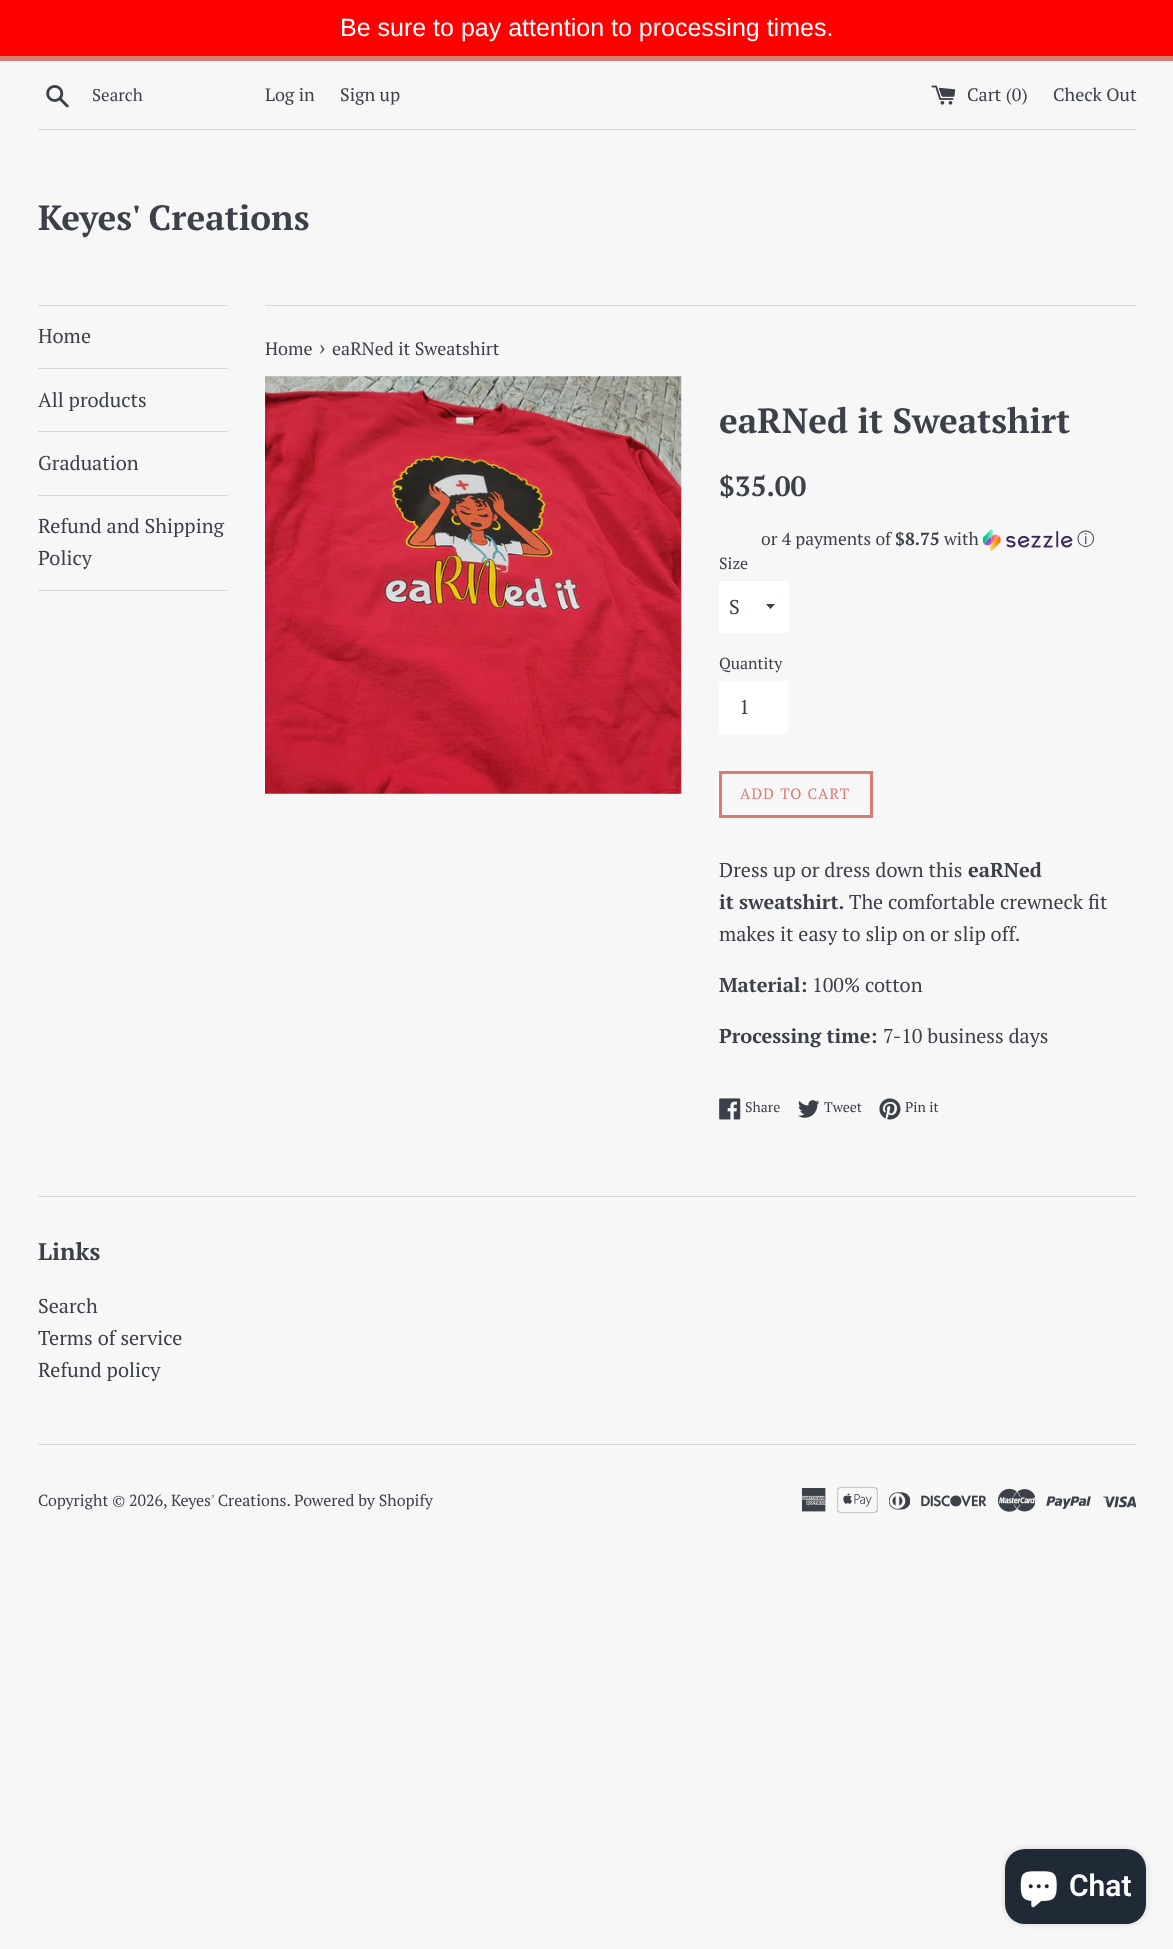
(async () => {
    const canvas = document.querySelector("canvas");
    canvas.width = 1173;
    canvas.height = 1949;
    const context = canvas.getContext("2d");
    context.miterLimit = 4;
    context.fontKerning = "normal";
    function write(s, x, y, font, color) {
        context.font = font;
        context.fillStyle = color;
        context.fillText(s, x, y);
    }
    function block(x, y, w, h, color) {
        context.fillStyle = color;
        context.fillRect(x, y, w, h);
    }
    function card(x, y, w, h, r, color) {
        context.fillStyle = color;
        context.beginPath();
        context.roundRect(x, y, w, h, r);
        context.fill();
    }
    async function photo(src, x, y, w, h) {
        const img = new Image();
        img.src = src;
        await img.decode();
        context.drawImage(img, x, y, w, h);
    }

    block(0, 0, 1173, 1949, "rgb(247, 247, 247)");
    block(0, 0, 1173, 56, "rgb(255, 0, 0)");
    write("Be sure to pay attention to processing times.", 340, 36, "25px Liberation Sans", "rgb(255, 255, 255)");
    block(0, 56, 1173, 5, "rgb(217, 124, 118)");
    await photo("media/1.png", 46, 85, 23, 23);
    write("Search", 92, 101, "17px PT Serif", "rgb(60, 64, 73)");
    write("Log in", 265, 101, "18px PT Serif", "rgb(60, 64, 73)");
    write("Sign up", 340, 101, "18px PT Serif", "rgb(60, 64, 73)");
    await photo("media/2.png", 931, 85, 25, 20);
    write("Cart (0)", 967, 101, "18px PT Serif", "rgb(60, 64, 73)");
    write("Check Out", 1053, 101, "18px PT Serif", "rgb(60, 64, 73)");
    block(38, 129, 1098, 1, "rgb(215, 216, 210)");
    write("Keyes' Creations", 38, 230, "bold 35px PT Serif", "rgb(60, 64, 73)");
    block(38, 305, 190, 1, "rgb(215, 216, 210)");
    block(38, 368, 190, 1, "rgb(215, 216, 210)");
    write("Home", 38, 343, "20px PT Serif", "rgb(60, 64, 73)");
    block(38, 431, 190, 1, "rgb(215, 216, 210)");
    write("All products", 38, 407, "20px PT Serif", "rgb(60, 64, 73)");
    block(38, 495, 190, 1, "rgb(215, 216, 210)");
    write("Graduation", 38, 470, "20px PT Serif", "rgb(60, 64, 73)");
    block(38, 590, 190, 1, "rgb(215, 216, 210)");
    write("Refund and Shipping", 38, 533, "20px PT Serif", "rgb(60, 64, 73)");
    write("Policy", 38, 565, "20px PT Serif", "rgb(60, 64, 73)");
    block(265, 305, 871, 1, "rgb(215, 216, 210)");
    write("Home", 265, 355, "18px PT Serif", "rgb(60, 64, 73)");
    write("›", 319, 355, "22px PT Serif", "rgb(60, 64, 73)");
    write("eaRNed it Sweatshirt", 332, 355, "18px PT Serif", "rgb(60, 64, 73)");
    await photo("media/3.png", 265, 376, 417, 418);
    write("eaRNed it Sweatshirt", 719, 433, "bold 35px PT Serif", "rgb(60, 64, 73)");
    write("$35.00", 719, 496, "bold 28px PT Serif", "rgb(60, 64, 73)");
    write("or 4 payments of", 761, 545, "17.5px PT Serif", "rgb(60, 64, 73)");
    write("$8.75", 895, 545, "bold 17.5px PT Serif", "rgb(60, 64, 73)");
    write("with", 944, 545, "17.5px PT Serif", "rgb(60, 64, 73)");
    await photo("media/4.png", 983, 529, 90, 22);
    write("ⓘ", 1077, 545, "500 17.5px WenQuanYi Zen Hei", "rgb(60, 64, 73)");
    write("Size", 719, 569, "16px PT Serif", "rgb(60, 64, 73)");
    block(719, 581, 70, 52, "rgb(255, 255, 255)");
    context.fillStyle = "rgb(60, 64, 73)";
    context.beginPath();
    context.moveTo(766, 604);
    context.lineTo(770.5, 609);
    context.lineTo(775, 604);
    context.closePath();
    context.fill();
    write("S", 729, 614, "20px PT Serif", "rgb(60, 64, 73)");
    write("Quantity", 719, 669, "16px PT Serif", "rgb(60, 64, 73)");
    block(719, 681, 69, 53, "rgb(255, 255, 255)");
    write("1", 739, 714, "20px PT Serif", "rgb(60, 64, 73)");
    context.strokeStyle = "rgb(217, 124, 118)";
    context.lineWidth = 3;
    context.strokeRect(720.5, 772.5, 151, 44);
    context.letterSpacing = "1.25px";
    write("ADD TO CART", 740, 799, "15px PT Serif", "rgb(217, 124, 118)");
    context.letterSpacing = "0px";
    write("Dress up or dress down this", 719, 877, "20px PT Serif", "rgb(60, 64, 73)");
    write("eaRNed", 968, 877, "bold 20px PT Serif", "rgb(60, 64, 73)");
    write("it sweatshirt.", 719, 909, "bold 20px PT Serif", "rgb(60, 64, 73)");
    write("The comfortable crewneck fit", 849, 909, "20px PT Serif", "rgb(60, 64, 73)");
    write("makes it easy to slip on or slip off.", 719, 941, "20px PT Serif", "rgb(60, 64, 73)");
    write("Material:", 719, 992, "bold 20px PT Serif", "rgb(60, 64, 73)");
    write("100% cotton", 812, 992, "20px PT Serif", "rgb(60, 64, 73)");
    write("Processing time:", 719, 1043, "bold 20px PT Serif", "rgb(60, 64, 73)");
    write("7-10 business days", 883, 1043, "20px PT Serif", "rgb(60, 64, 73)");
    await photo("media/5.png", 719, 1098, 22, 22);
    write("Share", 745, 1112, "14px PT Serif", "rgb(60, 64, 73)");
    await photo("media/6.png", 798, 1100, 22, 18);
    write("Tweet", 824, 1112, "14px PT Serif", "rgb(60, 64, 73)");
    await photo("media/7.png", 879, 1098, 22, 22);
    write("Pin it", 905, 1112, "14px PT Serif", "rgb(60, 64, 73)");
    block(38, 1196, 1098, 1, "rgb(215, 216, 210)");
    write("Links", 38, 1260, "bold 24px PT Serif", "rgb(60, 64, 73)");
    write("Search", 38, 1313, "20px PT Serif", "rgb(60, 64, 73)");
    write("Terms of service", 38, 1345, "20px PT Serif", "rgb(60, 64, 73)");
    write("Refund policy", 38, 1377, "20px PT Serif", "rgb(60, 64, 73)");
    block(38, 1444, 1098, 1, "rgb(215, 216, 210)");
    write("Copyright © 2026, Keyes' Creations. Powered by Shopify", 38, 1506, "16px PT Serif", "rgb(60, 64, 73)");
    await photo("media/8.png", 801, 1488, 25, 24);
    await photo("media/9.png", 837, 1487, 41, 26);
    await photo("media/10.png", 889, 1492, 21, 18);
    await photo("media/11.png", 921, 1495, 65, 12);
    await photo("media/12.png", 998, 1488, 37, 24);
    await photo("media/13.png", 1046, 1496, 45, 13);
    await photo("media/14.png", 1103, 1496, 33, 12);
    context.fillStyle = "rgba(0, 0, 0, 0.15)";
    context.filter = "blur(3px)";
    context.beginPath();
    context.roundRect(1005, 1849, 141, 75, 20);
    context.fill();
    context.filter = "none";
    card(1005, 1849, 141, 75, 20, "rgb(32, 42, 54)");
    await photo("media/15.png", 1020, 1871, 37, 37);
    write("Chat", 1069, 1896, "600 30px Roboto", "rgb(255, 255, 255)");
})();
